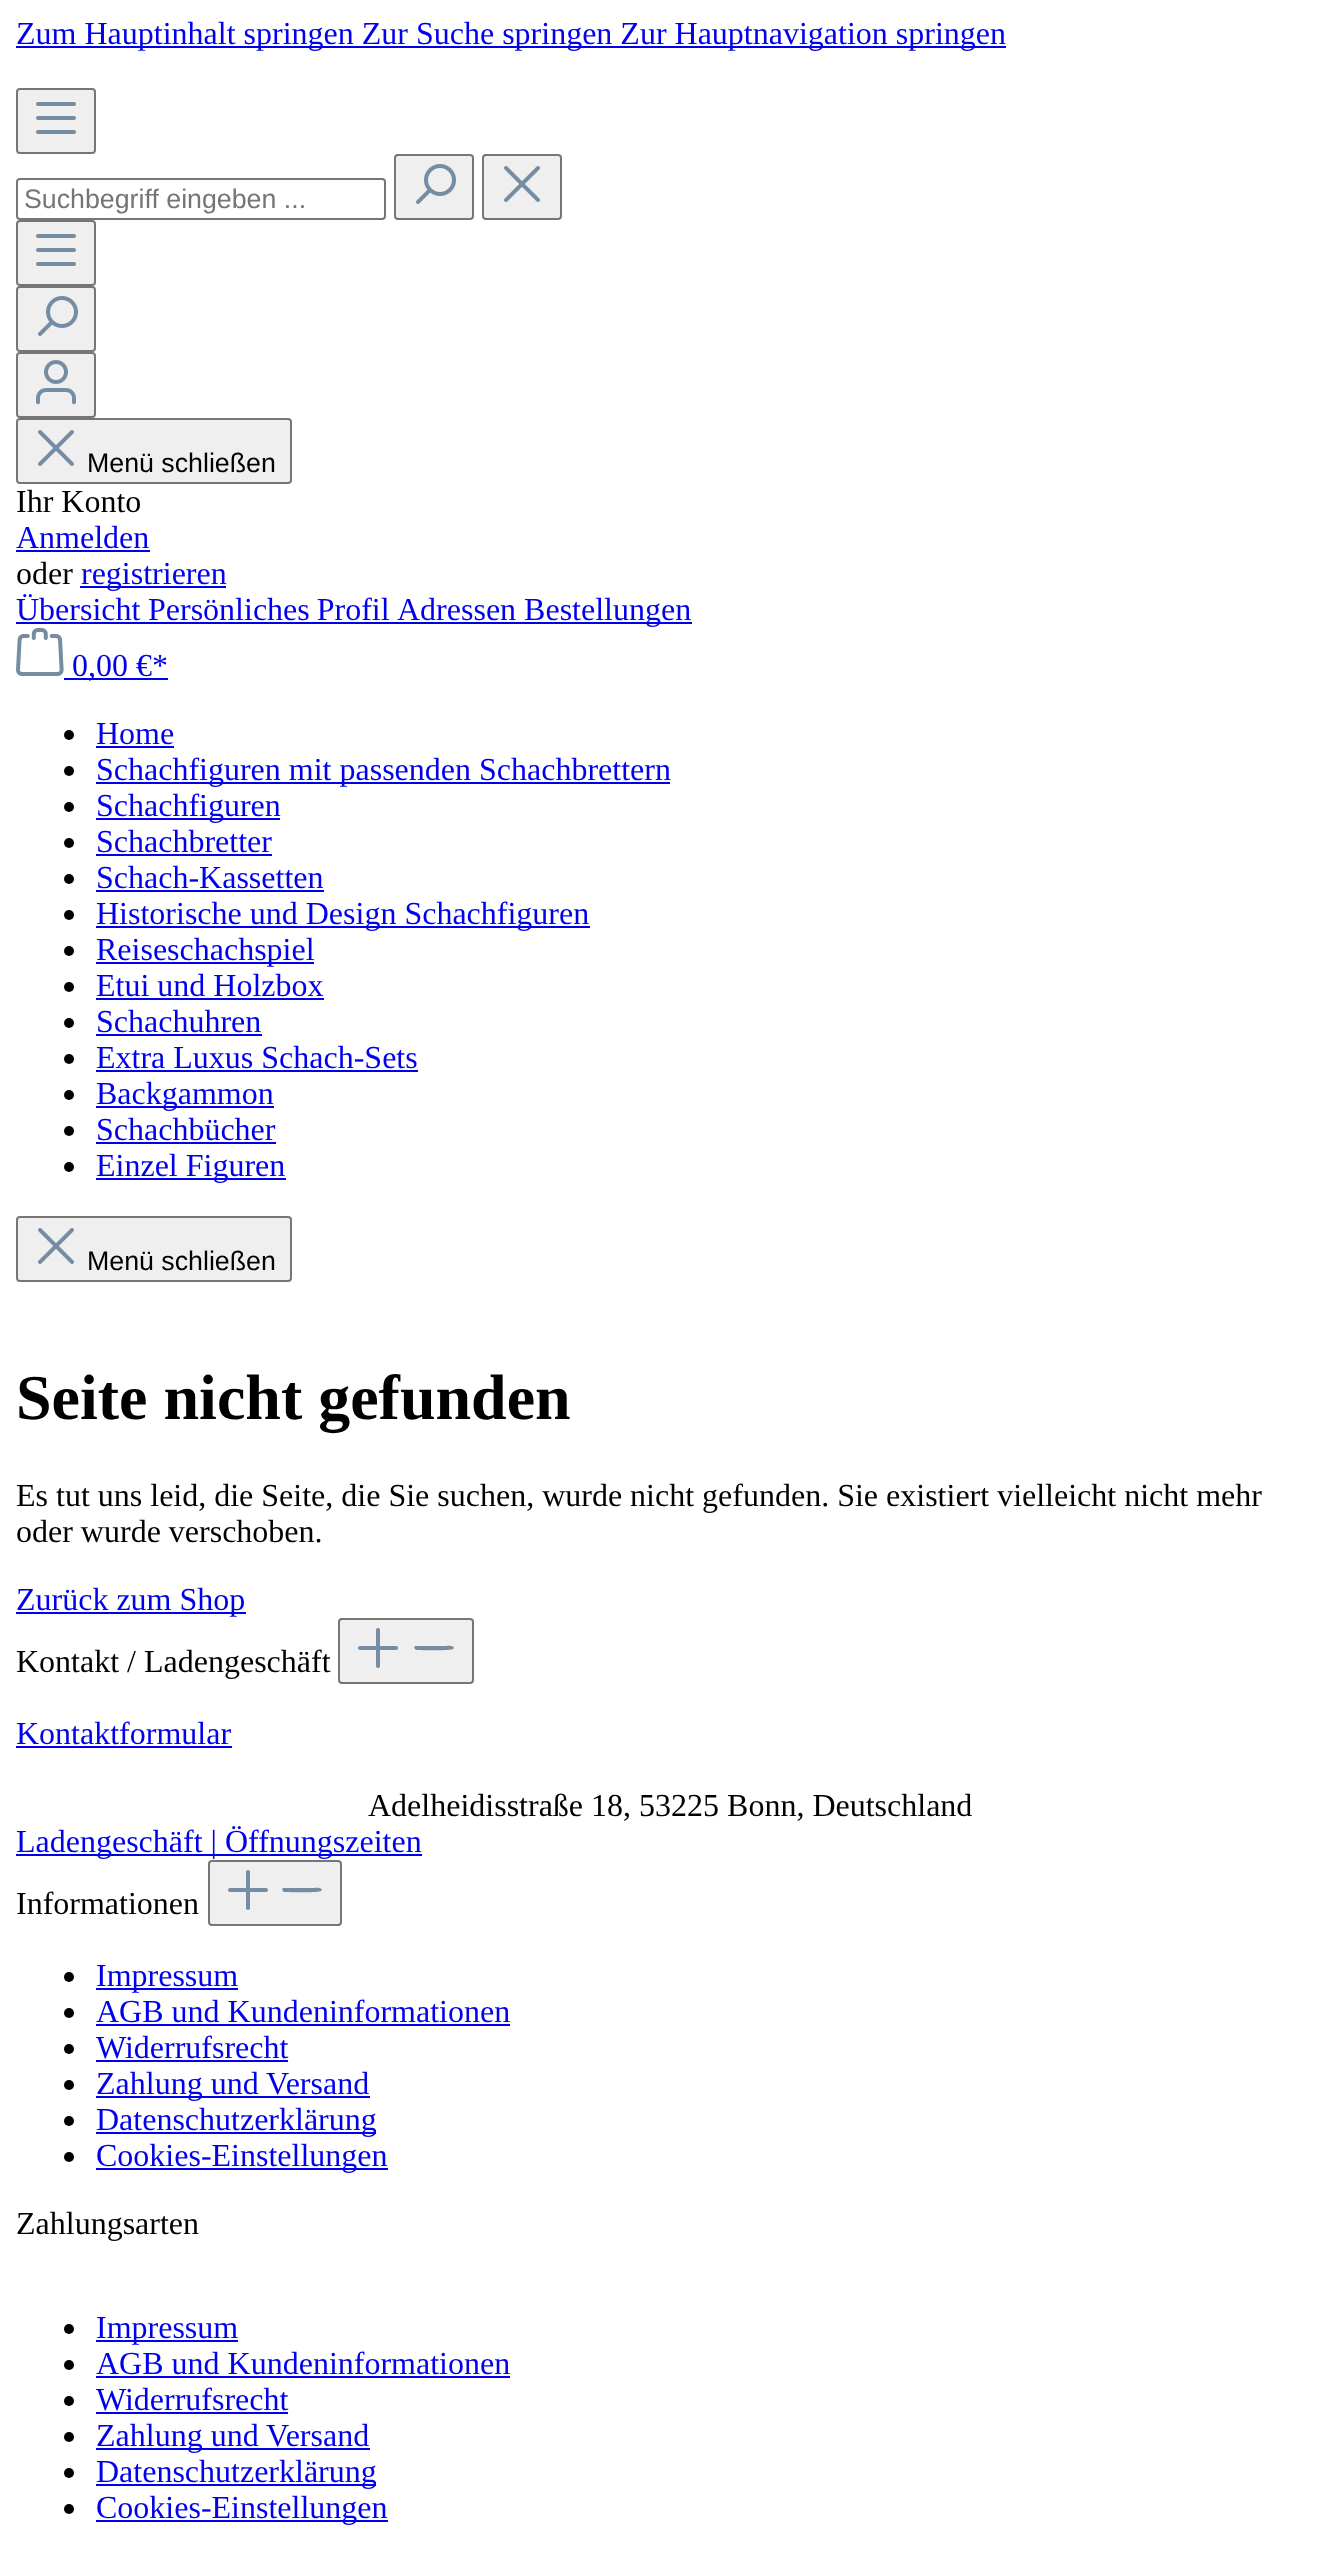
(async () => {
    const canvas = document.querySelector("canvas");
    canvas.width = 1340;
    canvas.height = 2572;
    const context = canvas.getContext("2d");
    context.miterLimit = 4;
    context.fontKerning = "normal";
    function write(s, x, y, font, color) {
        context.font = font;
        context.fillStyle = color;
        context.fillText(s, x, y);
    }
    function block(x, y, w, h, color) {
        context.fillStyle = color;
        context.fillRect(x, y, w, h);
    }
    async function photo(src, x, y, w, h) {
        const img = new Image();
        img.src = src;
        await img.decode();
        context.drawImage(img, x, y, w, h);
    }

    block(0, 0, 1340, 2572, "rgb(255, 255, 255)");
    block(16, 46, 990, 2, "rgb(0, 0, 238)");
    write("Zum Hauptinhalt springen Zur Suche springen Zur Hauptnavigation springen", 16, 44, "32px Liberation Serif", "rgb(0, 0, 238)");
    context.fillStyle = "rgb(239, 239, 239)";
    context.beginPath();
    context.roundRect(17, 89, 78, 64, 3);
    context.fill();
    context.strokeStyle = "rgb(118, 118, 118)";
    context.lineWidth = 2;
    context.stroke();
    await photo("media/1.png", 36, 102, 40, 32);
    context.beginPath();
    context.roundRect(17, 179, 368, 40, 3);
    context.stroke();
    write("Suchbegriff eingeben ...", 24, 208, "26.75px Liberation Sans", "rgb(117, 117, 117)");
    context.fillStyle = "rgb(239, 239, 239)";
    context.beginPath();
    context.roundRect(395, 155, 78, 64, 3);
    context.fill();
    context.stroke();
    await photo("media/2.png", 416, 164, 40, 40);
    context.beginPath();
    context.roundRect(483, 155, 78, 64, 3);
    context.fill();
    context.stroke();
    await photo("media/3.png", 504, 166, 36, 36);
    context.beginPath();
    context.roundRect(17, 221, 78, 64, 3);
    context.fill();
    context.stroke();
    await photo("media/1.png", 36, 234, 40, 32);
    context.beginPath();
    context.roundRect(17, 287, 78, 64, 3);
    context.fill();
    context.stroke();
    await photo("media/2.png", 38, 296, 40, 40);
    context.beginPath();
    context.roundRect(17, 353, 78, 64, 3);
    context.fill();
    context.stroke();
    await photo("media/4.png", 36, 360, 40, 45);
    context.beginPath();
    context.roundRect(17, 419, 274, 64, 3);
    context.fill();
    context.stroke();
    await photo("media/3.png", 38, 430, 36, 36);
    write("Menü schließen", 87, 472, "26.75px Liberation Sans", "rgb(0, 0, 0)");
    write("Ihr Konto", 16, 512, "32px Liberation Serif", "rgb(0, 0, 0)");
    write("Anmelden", 16, 548, "32px Liberation Serif", "rgb(0, 0, 238)");
    block(16, 550, 134, 2, "rgb(0, 0, 238)");
    write("oder", 16, 584, "32px Liberation Serif", "rgb(0, 0, 0)");
    block(80, 586, 146, 2, "rgb(0, 0, 238)");
    write("registrieren", 81, 584, "32px Liberation Serif", "rgb(0, 0, 238)");
    write("Übersicht", 16, 620, "32px Liberation Serif", "rgb(0, 0, 238)");
    block(16, 622, 676, 2, "rgb(0, 0, 238)");
    context.wordSpacing = "-1px";
    write("Persönliches Profil", 148, 620, "32px Liberation Serif", "rgb(0, 0, 238)");
    context.wordSpacing = "0px";
    write("Adressen Bestellungen", 397, 620, "32px Liberation Serif", "rgb(0, 0, 238)");
    await photo("media/5.png", 16, 628, 48, 48);
    block(64, 678, 104, 2, "rgb(0, 0, 238)");
    write("0,00 €*", 72, 676, "32px Liberation Serif", "rgb(0, 0, 238)");
    context.fillStyle = "rgb(0, 0, 0)";
    context.beginPath();
    context.arc(69, 735, 5, 0, Math.PI * 2);
    context.fill();
    write("Home", 96, 744, "32px Liberation Serif", "rgb(0, 0, 238)");
    block(96, 746, 78, 2, "rgb(0, 0, 238)");
    context.fillStyle = "rgb(0, 0, 0)";
    context.beginPath();
    context.arc(69, 771, 5, 0, Math.PI * 2);
    context.fill();
    block(96, 782, 574, 2, "rgb(0, 0, 238)");
    write("Schachfiguren mit passenden Schachbrettern", 96, 780, "32px Liberation Serif", "rgb(0, 0, 238)");
    context.fillStyle = "rgb(0, 0, 0)";
    context.beginPath();
    context.arc(69, 807, 5, 0, Math.PI * 2);
    context.fill();
    block(96, 818, 184, 2, "rgb(0, 0, 238)");
    write("Schachfiguren", 96, 816, "32px Liberation Serif", "rgb(0, 0, 238)");
    context.fillStyle = "rgb(0, 0, 0)";
    context.beginPath();
    context.arc(69, 843, 5, 0, Math.PI * 2);
    context.fill();
    write("Schachbretter", 96, 852, "32px Liberation Serif", "rgb(0, 0, 238)");
    block(96, 854, 176, 2, "rgb(0, 0, 238)");
    context.fillStyle = "rgb(0, 0, 0)";
    context.beginPath();
    context.arc(69, 879, 5, 0, Math.PI * 2);
    context.fill();
    write("Schach-Kassetten", 96, 888, "32px Liberation Serif", "rgb(0, 0, 238)");
    block(96, 890, 228, 2, "rgb(0, 0, 238)");
    context.fillStyle = "rgb(0, 0, 0)";
    context.beginPath();
    context.arc(69, 915, 5, 0, Math.PI * 2);
    context.fill();
    block(96, 926, 494, 2, "rgb(0, 0, 238)");
    write("Historische und Design Schachfiguren", 96, 924, "32px Liberation Serif", "rgb(0, 0, 238)");
    context.fillStyle = "rgb(0, 0, 0)";
    context.beginPath();
    context.arc(69, 951, 5, 0, Math.PI * 2);
    context.fill();
    block(96, 962, 218, 2, "rgb(0, 0, 238)");
    write("Reiseschachspiel", 96, 960, "32px Liberation Serif", "rgb(0, 0, 238)");
    context.fillStyle = "rgb(0, 0, 0)";
    context.beginPath();
    context.arc(69, 987, 5, 0, Math.PI * 2);
    context.fill();
    write("Etui und Holzbox", 96, 996, "32px Liberation Serif", "rgb(0, 0, 238)");
    block(96, 998, 228, 2, "rgb(0, 0, 238)");
    context.fillStyle = "rgb(0, 0, 0)";
    context.beginPath();
    context.arc(69, 1023, 5, 0, Math.PI * 2);
    context.fill();
    write("Schachuhren", 96, 1032, "32px Liberation Serif", "rgb(0, 0, 238)");
    block(96, 1034, 166, 2, "rgb(0, 0, 238)");
    context.fillStyle = "rgb(0, 0, 0)";
    context.beginPath();
    context.arc(69, 1059, 5, 0, Math.PI * 2);
    context.fill();
    write("Extra Luxus Schach-Sets", 96, 1068, "32px Liberation Serif", "rgb(0, 0, 238)");
    block(96, 1070, 322, 2, "rgb(0, 0, 238)");
    context.fillStyle = "rgb(0, 0, 0)";
    context.beginPath();
    context.arc(69, 1095, 5, 0, Math.PI * 2);
    context.fill();
    block(96, 1106, 178, 2, "rgb(0, 0, 238)");
    write("Backgammon", 96, 1104, "32px Liberation Serif", "rgb(0, 0, 238)");
    context.fillStyle = "rgb(0, 0, 0)";
    context.beginPath();
    context.arc(69, 1131, 5, 0, Math.PI * 2);
    context.fill();
    write("Schachbücher", 96, 1140, "32px Liberation Serif", "rgb(0, 0, 238)");
    block(96, 1142, 180, 2, "rgb(0, 0, 238)");
    context.fillStyle = "rgb(0, 0, 0)";
    context.beginPath();
    context.arc(69, 1167, 5, 0, Math.PI * 2);
    context.fill();
    block(96, 1178, 190, 2, "rgb(0, 0, 238)");
    write("Einzel Figuren", 96, 1176, "32px Liberation Serif", "rgb(0, 0, 238)");
    context.fillStyle = "rgb(239, 239, 239)";
    context.beginPath();
    context.roundRect(17, 1217, 274, 64, 3);
    context.fill();
    context.stroke();
    await photo("media/3.png", 38, 1228, 36, 36);
    write("Menü schließen", 87, 1270, "26.75px Liberation Sans", "rgb(0, 0, 0)");
    write("Seite nicht gefunden", 16, 1419, "bold 64px Liberation Serif", "rgb(0, 0, 0)");
    write("Es tut uns leid, die Seite, die Sie suchen, wurde nicht gefunden. Sie existiert vielleicht nicht mehr", 16, 1506, "32px Liberation Serif", "rgb(0, 0, 0)");
    write("oder wurde verschoben.", 16, 1542, "32px Liberation Serif", "rgb(0, 0, 0)");
    block(16, 1612, 230, 2, "rgb(0, 0, 238)");
    write("Zurück zum Shop", 16, 1610, "32px Liberation Serif", "rgb(0, 0, 238)");
    write("Kontakt / Ladengeschäft", 16, 1672, "32px Liberation Serif", "rgb(0, 0, 0)");
    context.fillStyle = "rgb(239, 239, 239)";
    context.beginPath();
    context.roundRect(339, 1619, 134, 64, 3);
    context.fill();
    context.stroke();
    await photo("media/6.png", 358, 1628, 40, 40);
    context.fillStyle = "rgb(117, 140, 163)";
    context.beginPath();
    context.moveTo(416, 1650);
    context.bezierCurveTo(420, 1650, 452, 1651, 453, 1649);
    context.lineTo(454, 1648);
    context.bezierCurveTo(453, 1645, 447, 1646, 446, 1646);
    context.lineTo(415, 1646);
    context.bezierCurveTo(414, 1647, 414, 1648, 415, 1649);
    context.closePath();
    context.fill("evenodd");
    write("Kontaktformular", 16, 1744, "32px Liberation Serif", "rgb(0, 0, 238)");
    block(16, 1746, 216, 2, "rgb(0, 0, 238)");
    write("Adelheidisstraße 18, 53225 Bonn, Deutschland", 368, 1816, "32px Liberation Serif", "rgb(0, 0, 0)");
    block(16, 1854, 406, 2, "rgb(0, 0, 238)");
    write("Ladengeschäft | Öffnungszeiten", 16, 1852, "32px Liberation Serif", "rgb(0, 0, 238)");
    write("Informationen", 16, 1914, "32px Liberation Serif", "rgb(0, 0, 0)");
    context.fillStyle = "rgb(239, 239, 239)";
    context.beginPath();
    context.roundRect(209, 1861, 132, 64, 3);
    context.fill();
    context.stroke();
    await photo("media/6.png", 228, 1870, 40, 40);
    context.fillStyle = "rgb(117, 140, 163)";
    context.beginPath();
    context.moveTo(284, 1892);
    context.bezierCurveTo(288, 1892, 320, 1893, 321, 1891);
    context.lineTo(322, 1890);
    context.bezierCurveTo(321, 1887, 315, 1888, 314, 1888);
    context.lineTo(283, 1888);
    context.bezierCurveTo(282, 1889, 282, 1890, 283, 1891);
    context.closePath();
    context.fill("evenodd");
    context.fillStyle = "rgb(0, 0, 0)";
    context.beginPath();
    context.arc(69, 1977, 5, 0, Math.PI * 2);
    context.fill();
    block(96, 1988, 142, 2, "rgb(0, 0, 238)");
    write("Impressum", 96, 1986, "32px Liberation Serif", "rgb(0, 0, 238)");
    context.fillStyle = "rgb(0, 0, 0)";
    context.beginPath();
    context.arc(69, 2013, 5, 0, Math.PI * 2);
    context.fill();
    write("AGB und Kundeninformationen", 96, 2022, "32px Liberation Serif", "rgb(0, 0, 238)");
    block(96, 2024, 414, 2, "rgb(0, 0, 238)");
    context.fillStyle = "rgb(0, 0, 0)";
    context.beginPath();
    context.arc(69, 2049, 5, 0, Math.PI * 2);
    context.fill();
    write("Widerrufsrecht", 96, 2058, "32px Liberation Serif", "rgb(0, 0, 238)");
    block(96, 2060, 192, 2, "rgb(0, 0, 238)");
    context.fillStyle = "rgb(0, 0, 0)";
    context.beginPath();
    context.arc(69, 2085, 5, 0, Math.PI * 2);
    context.fill();
    block(96, 2096, 274, 2, "rgb(0, 0, 238)");
    write("Zahlung und Versand", 96, 2094, "32px Liberation Serif", "rgb(0, 0, 238)");
    context.fillStyle = "rgb(0, 0, 0)";
    context.beginPath();
    context.arc(69, 2121, 5, 0, Math.PI * 2);
    context.fill();
    block(96, 2132, 280, 2, "rgb(0, 0, 238)");
    write("Datenschutzerklärung", 96, 2130, "32px Liberation Serif", "rgb(0, 0, 238)");
    context.fillStyle = "rgb(0, 0, 0)";
    context.beginPath();
    context.arc(69, 2157, 5, 0, Math.PI * 2);
    context.fill();
    block(96, 2168, 292, 2, "rgb(0, 0, 238)");
    write("Cookies-Einstellungen", 96, 2166, "32px Liberation Serif", "rgb(0, 0, 238)");
    write("Zahlungsarten", 16, 2234, "32px Liberation Serif", "rgb(0, 0, 0)");
    context.beginPath();
    context.arc(69, 2329, 5, 0, Math.PI * 2);
    context.fill();
    block(96, 2340, 142, 2, "rgb(0, 0, 238)");
    write("Impressum", 96, 2338, "32px Liberation Serif", "rgb(0, 0, 238)");
    context.fillStyle = "rgb(0, 0, 0)";
    context.beginPath();
    context.arc(69, 2365, 5, 0, Math.PI * 2);
    context.fill();
    write("AGB und Kundeninformationen", 96, 2374, "32px Liberation Serif", "rgb(0, 0, 238)");
    block(96, 2376, 414, 2, "rgb(0, 0, 238)");
    context.fillStyle = "rgb(0, 0, 0)";
    context.beginPath();
    context.arc(69, 2401, 5, 0, Math.PI * 2);
    context.fill();
    write("Widerrufsrecht", 96, 2410, "32px Liberation Serif", "rgb(0, 0, 238)");
    block(96, 2412, 192, 2, "rgb(0, 0, 238)");
    context.fillStyle = "rgb(0, 0, 0)";
    context.beginPath();
    context.arc(69, 2437, 5, 0, Math.PI * 2);
    context.fill();
    block(96, 2448, 274, 2, "rgb(0, 0, 238)");
    write("Zahlung und Versand", 96, 2446, "32px Liberation Serif", "rgb(0, 0, 238)");
    context.fillStyle = "rgb(0, 0, 0)";
    context.beginPath();
    context.arc(69, 2473, 5, 0, Math.PI * 2);
    context.fill();
    block(96, 2484, 280, 2, "rgb(0, 0, 238)");
    write("Datenschutzerklärung", 96, 2482, "32px Liberation Serif", "rgb(0, 0, 238)");
    context.fillStyle = "rgb(0, 0, 0)";
    context.beginPath();
    context.arc(69, 2509, 5, 0, Math.PI * 2);
    context.fill();
    block(96, 2520, 292, 2, "rgb(0, 0, 238)");
    write("Cookies-Einstellungen", 96, 2518, "32px Liberation Serif", "rgb(0, 0, 238)");
})();
